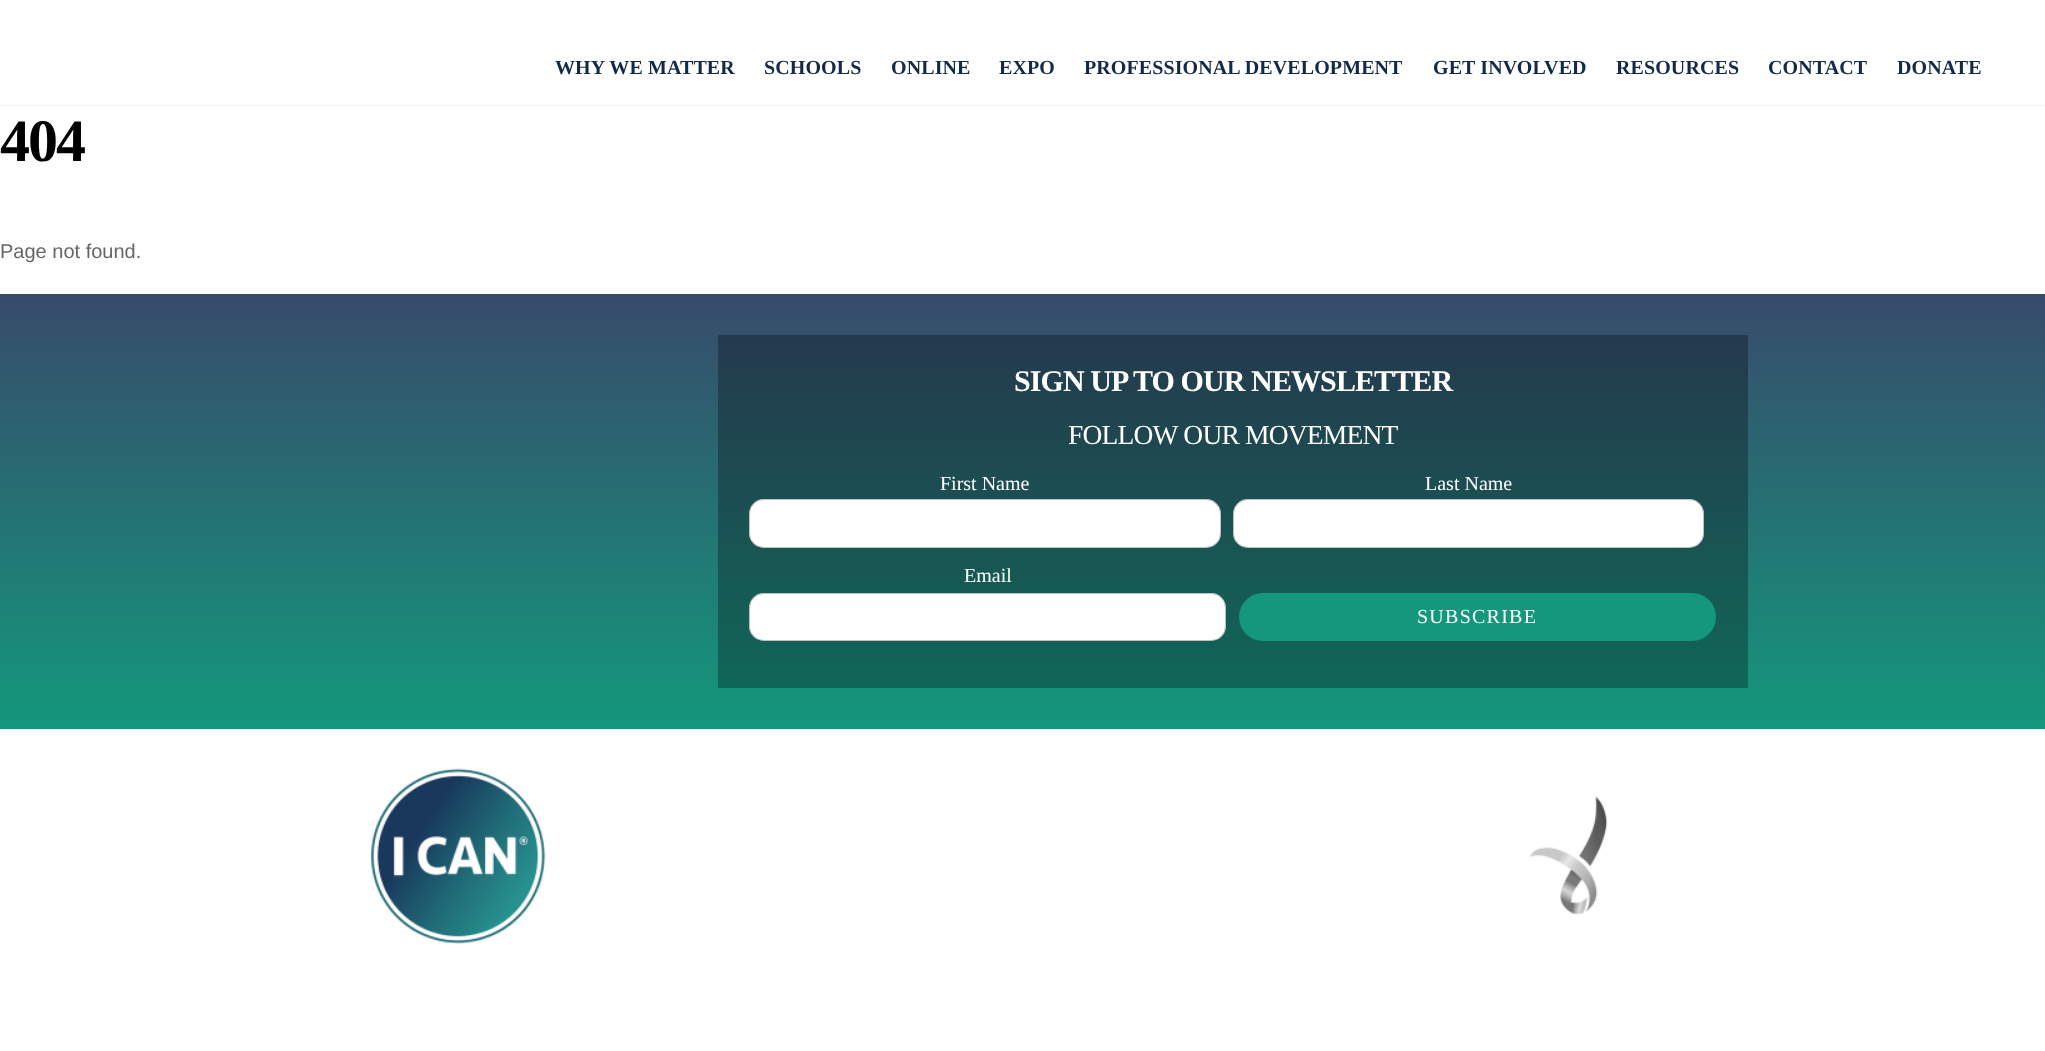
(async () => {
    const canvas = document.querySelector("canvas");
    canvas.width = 2045;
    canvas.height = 1051;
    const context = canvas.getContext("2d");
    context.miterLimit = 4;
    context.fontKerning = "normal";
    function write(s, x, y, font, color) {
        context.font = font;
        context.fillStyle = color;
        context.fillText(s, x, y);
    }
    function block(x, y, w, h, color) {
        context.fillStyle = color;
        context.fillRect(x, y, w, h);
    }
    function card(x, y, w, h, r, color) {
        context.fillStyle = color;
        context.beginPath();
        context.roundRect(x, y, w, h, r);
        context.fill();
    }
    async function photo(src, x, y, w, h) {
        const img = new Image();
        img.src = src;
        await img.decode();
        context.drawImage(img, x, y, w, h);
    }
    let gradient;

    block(0, 0, 2045, 1051, "rgb(255, 255, 255)");
    block(0, 105, 2045, 1, "rgb(242, 242, 242)");
    context.letterSpacing = "0.1px";
    write("WHY WE MATTER", 555, 74, "bold 20px Liberation Serif", "rgb(20, 41, 74)");
    write("SCHOOLS", 764, 74, "bold 20px Liberation Serif", "rgb(20, 41, 74)");
    write("ONLINE", 891, 74, "bold 20px Liberation Serif", "rgb(20, 41, 74)");
    write("EXPO", 999, 74, "bold 20px Liberation Serif", "rgb(20, 41, 74)");
    write("PROFESSIONAL DEVELOPMENT", 1084, 74, "bold 20px Liberation Serif", "rgb(20, 41, 74)");
    write("GET INVOLVED", 1433, 74, "bold 20px Liberation Serif", "rgb(20, 41, 74)");
    write("RESOURCES", 1616, 74, "bold 20px Liberation Serif", "rgb(20, 41, 74)");
    write("CONTACT", 1768, 74, "bold 20px Liberation Serif", "rgb(20, 41, 74)");
    write("DONATE", 1897, 74, "bold 20px Liberation Serif", "rgb(20, 41, 74)");
    context.letterSpacing = "-2px";
    write("404", 0, 161, "bold 60px Liberation Serif", "rgb(0, 0, 0)");
    context.letterSpacing = "0px";
    write("Page not found.", 0, 258, "20px Liberation Sans", "rgb(102, 102, 102)");
    gradient = context.createLinearGradient(1023, 294, 1023, 729);
    gradient.addColorStop(0, "rgb(55, 75, 107)");
    gradient.addColorStop(0.99, "rgb(20, 151, 124)");
    context.fillStyle = gradient;
    context.fillRect(0, 294, 2045, 435);
    gradient = context.createLinearGradient(1023, 294, 1023, 729);
    gradient.addColorStop(0, "rgb(39, 53, 76)");
    gradient.addColorStop(0.99, "rgb(14, 107, 88)");
    context.fillStyle = gradient;
    context.fillRect(718, 335, 1030, 353);
    context.letterSpacing = "-0.9px";
    write("SIGN UP TO OUR NEWSLETTER", 1014, 391, "bold 30px Liberation Serif", "rgb(255, 255, 255)");
    context.letterSpacing = "-0.8px";
    write("FOLLOW OUR MOVEMENT", 1068, 444, "27.5px Liberation Serif", "rgb(255, 255, 255)");
    context.letterSpacing = "0px";
    write("First Name", 940, 490, "20px Liberation Serif", "rgb(255, 255, 255)");
    card(749, 499, 472, 49, 15, "rgb(255, 255, 255)");
    context.beginPath();
    context.roundRect(749.5, 499.5, 471, 48, 14.5);
    context.strokeStyle = "rgba(0, 0, 0, 0.25)";
    context.stroke();
    write("Last Name", 1425, 490, "20px Liberation Serif", "rgb(255, 255, 255)");
    card(1233, 499, 471, 49, 15, "rgb(255, 255, 255)");
    context.beginPath();
    context.roundRect(1233.5, 499.5, 470, 48, 14.5);
    context.stroke();
    write("Email", 964, 582, "20px Liberation Serif", "rgb(255, 255, 255)");
    card(749, 593, 477, 48, 15, "rgb(255, 255, 255)");
    context.beginPath();
    context.roundRect(749.5, 593.5, 476, 47, 14.5);
    context.stroke();
    card(1239, 593, 477, 48, 24, "rgb(20, 151, 124)");
    context.letterSpacing = "1.25px";
    write("SUBSCRIBE", 1417, 623, "20px Liberation Serif", "rgb(255, 255, 255)");
    await photo("media/1.png", 370, 768, 176, 176);
    await photo("media/2.png", 1530, 796, 78, 119);
})();
